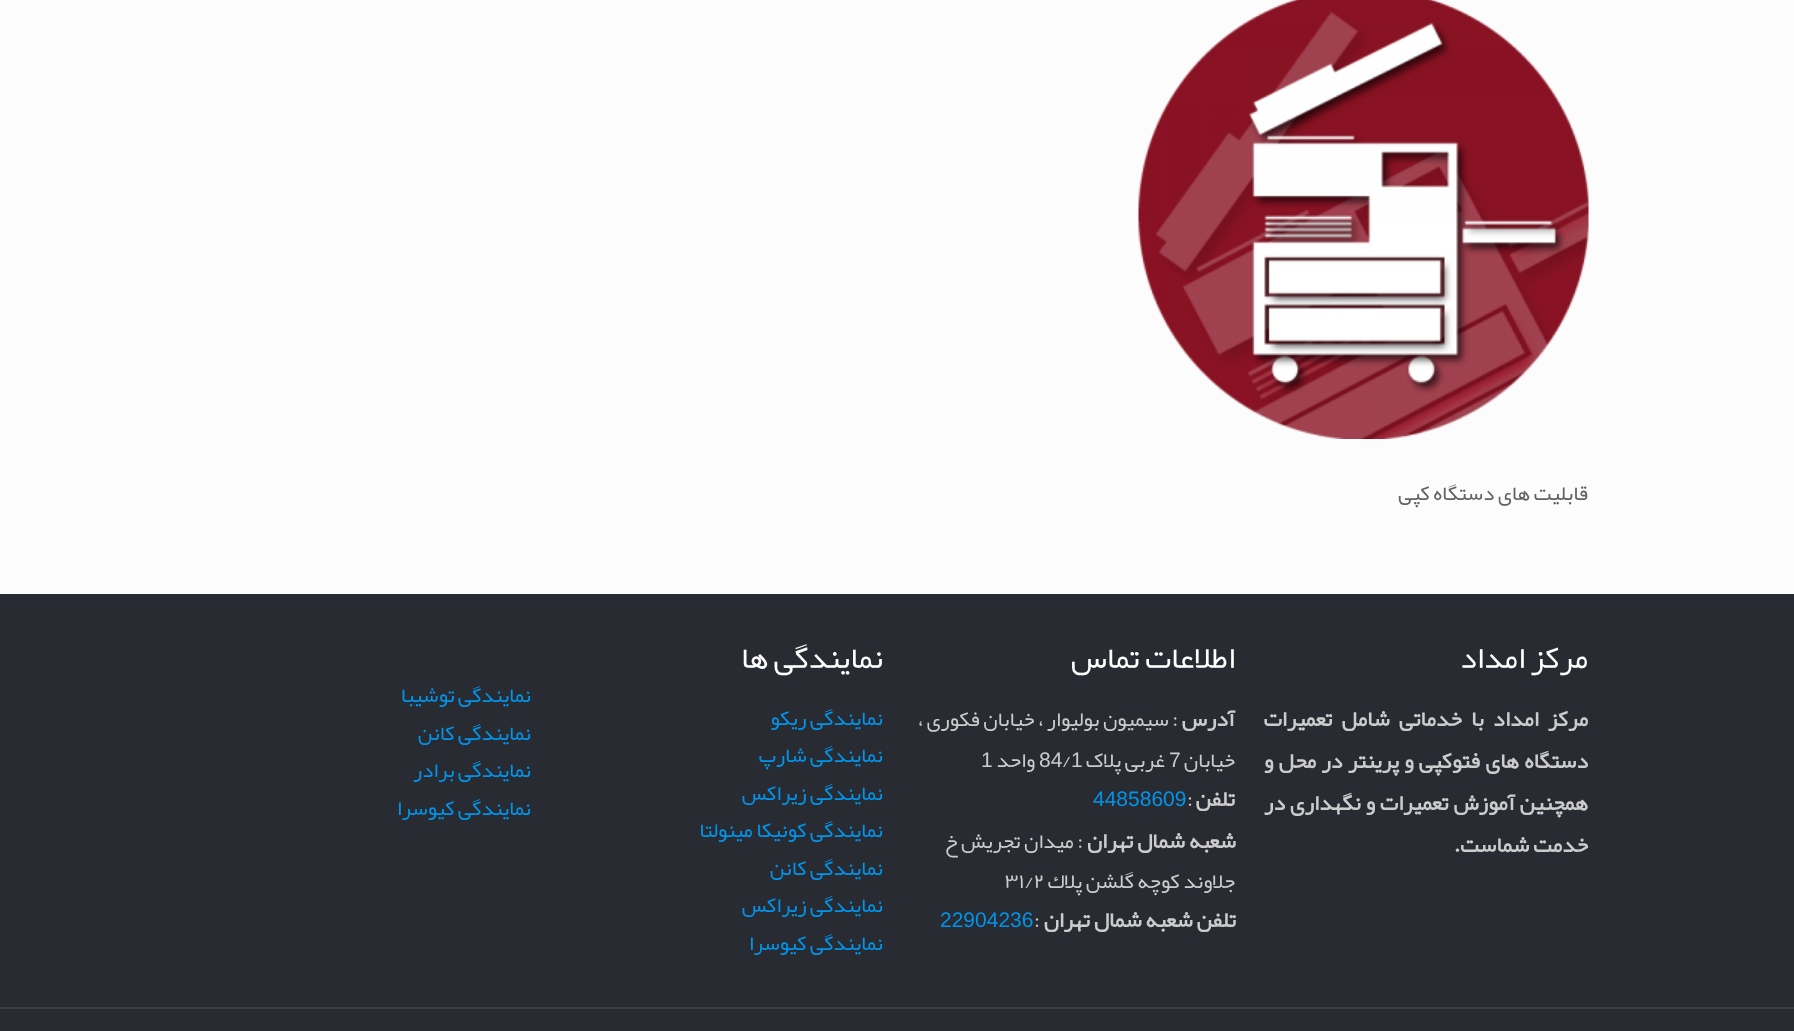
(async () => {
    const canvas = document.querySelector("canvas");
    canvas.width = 1794;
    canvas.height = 1031;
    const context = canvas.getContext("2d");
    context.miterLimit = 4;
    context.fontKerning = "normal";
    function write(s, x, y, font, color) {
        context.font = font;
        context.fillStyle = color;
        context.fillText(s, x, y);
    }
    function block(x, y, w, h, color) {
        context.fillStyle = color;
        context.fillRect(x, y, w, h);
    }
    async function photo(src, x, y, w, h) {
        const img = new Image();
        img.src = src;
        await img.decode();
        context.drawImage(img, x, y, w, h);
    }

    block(0, 0, 1794, 1031, "rgb(252, 252, 252)");
    await photo("media/1.png", 1138, 0, 451, 439);
    context.direction = "rtl";
    write("قابلیت های دستگاه کپی", 1588, 500, "21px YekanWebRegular", "rgb(98, 98, 98)");
    block(0, 594, 1794, 437, "rgb(41, 43, 51)");
    write("مرکز امداد", 1588, 668, "31.5px YekanWebRegular", "rgb(255, 255, 255)");
    context.wordSpacing = "5.5px";
    write("مرکز امداد با خدماتی شامل تعمیرات", 1588, 726, "bold 22px YekanWebRegular", "rgb(204, 204, 204)");
    context.wordSpacing = "1.5px";
    write("دستگاه های فتوکپی و پرینتر در محل و", 1588, 768, "bold 22px YekanWebRegular", "rgb(204, 204, 204)");
    context.wordSpacing = "1px";
    write("همچنین آموزش تعمیرات و نگهداری در", 1588, 810, "bold 22px YekanWebRegular", "rgb(204, 204, 204)");
    context.wordSpacing = "0px";
    write("خدمت شماست.", 1588, 852, "bold 22px YekanWebRegular", "rgb(204, 204, 204)");
    write("اطلاعات تماس", 1235, 668, "31.5px YekanWebRegular", "rgb(255, 255, 255)");
    write("آدرس", 1235, 726, "bold 22px YekanWebRegular", "rgb(204, 204, 204)");
    write(": سیمیون بولیوار ، خیابان فکوری ،", 1178, 726, "21px YekanWebRegular", "rgb(204, 204, 204)");
    write("خیابان", 1235, 767, "21px YekanWebRegular", "rgb(204, 204, 204)");
    context.direction = "ltr";
    write("7", 1169, 767, "21px Liberation Sans", "rgb(204, 204, 204)");
    context.direction = "rtl";
    write("غربی پلاک", 1165, 767, "21px YekanWebRegular", "rgb(204, 204, 204)");
    context.direction = "ltr";
    write("1", 1071, 767, "21px Liberation Sans", "rgb(204, 204, 204)");
    write("/", 1062, 767, "21px YekanWebRegular", "rgb(204, 204, 204)");
    write("84", 1039, 767, "21px Liberation Sans", "rgb(204, 204, 204)");
    context.direction = "rtl";
    write("واحد", 1035, 767, "21px YekanWebRegular", "rgb(204, 204, 204)");
    context.direction = "ltr";
    write("1", 981, 767, "21px Liberation Sans", "rgb(204, 204, 204)");
    context.direction = "rtl";
    write("تلفن", 1235, 806, "bold 22px YekanWebRegular", "rgb(204, 204, 204)");
    context.direction = "ltr";
    write(":", 1187, 806, "21px YekanWebRegular", "rgb(204, 204, 204)");
    write("44858609", 1093, 806, "21px Liberation Sans", "rgb(0, 149, 235)");
    context.direction = "rtl";
    write("شعبه شمال تهران", 1236, 848, "bold 22px YekanWebRegular", "rgb(204, 204, 204)");
    write(": ميدان تجريش خ", 1083, 848, "21px YekanWebRegular", "rgb(204, 204, 204)");
    write("جلاوند كوچه گلشن پلاك", 1235, 888, "21px YekanWebRegular", "rgb(204, 204, 204)");
    context.direction = "ltr";
    write("٣١/٢", 1005, 888, "21px YekanWebRegular", "rgb(204, 204, 204)");
    context.direction = "rtl";
    write("تلفن شعبه شمال تهران", 1236, 927, "bold 22px YekanWebRegular", "rgb(204, 204, 204)");
    context.direction = "ltr";
    write(":", 1034, 927, "21px YekanWebRegular", "rgb(204, 204, 204)");
    write("22904236", 940, 927, "21px Liberation Sans", "rgb(0, 149, 235)");
    context.direction = "rtl";
    write("نمایندگی ها", 883, 668, "31.5px YekanWebRegular", "rgb(255, 255, 255)");
    write("نمایندگی ریکو", 883, 725, "21px YekanWebRegular", "rgb(0, 149, 235)");
    write("نمایندگی شارپ", 883, 762, "21px YekanWebRegular", "rgb(0, 149, 235)");
    write("نمایندگی زیراکس", 883, 800, "21px YekanWebRegular", "rgb(0, 149, 235)");
    write("نمایندگی کونیکا مینولتا", 883, 837, "21px YekanWebRegular", "rgb(0, 149, 235)");
    write("نمایندگی کانن", 883, 875, "21px YekanWebRegular", "rgb(0, 149, 235)");
    write("نمایندگی زیراکس", 883, 912, "21px YekanWebRegular", "rgb(0, 149, 235)");
    write("نمایندگی کیوسرا", 883, 950, "21px YekanWebRegular", "rgb(0, 149, 235)");
    write("نمایندگی توشیبا", 531, 702, "21px YekanWebRegular", "rgb(0, 149, 235)");
    write("نمایندگی کانن", 531, 740, "21px YekanWebRegular", "rgb(0, 149, 235)");
    write("نمایندگی برادر", 531, 777, "21px YekanWebRegular", "rgb(0, 149, 235)");
    write("نمایندگی کیوسرا", 531, 815, "21px YekanWebRegular", "rgb(0, 149, 235)");
    block(0, 1007, 1794, 2, "rgb(62, 64, 71)");
})();
